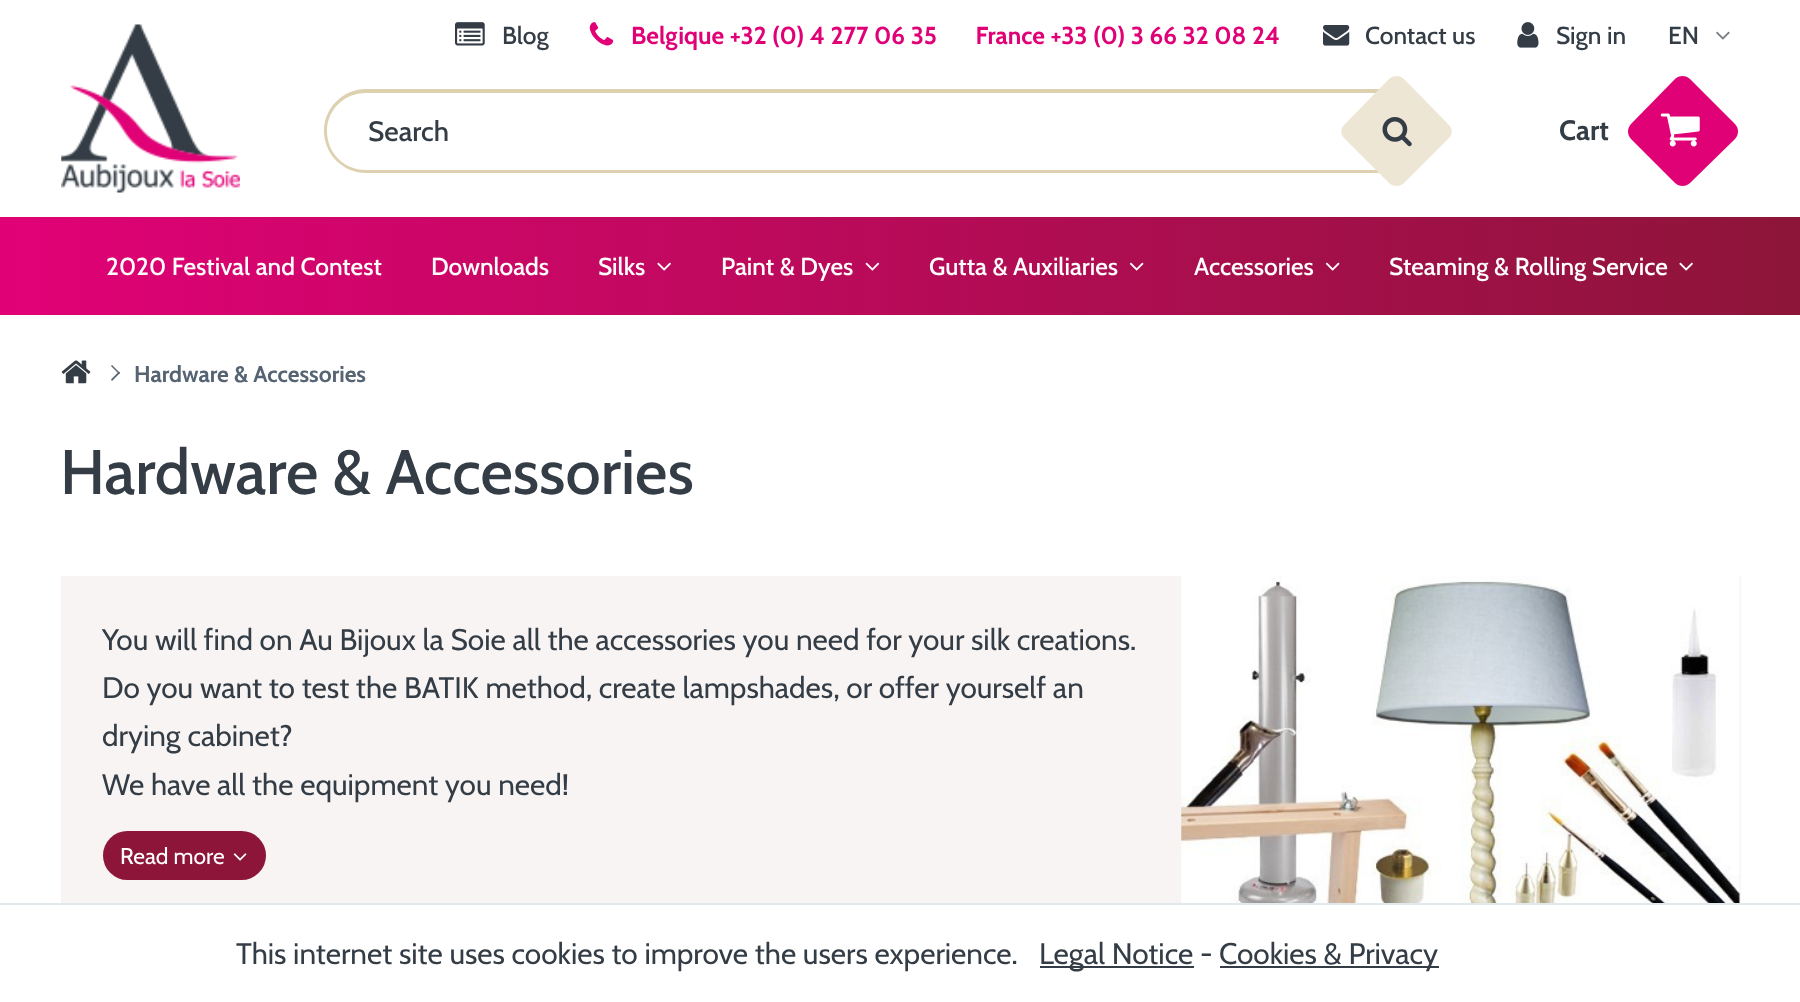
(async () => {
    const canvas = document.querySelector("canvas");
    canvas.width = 1800;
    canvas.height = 1002;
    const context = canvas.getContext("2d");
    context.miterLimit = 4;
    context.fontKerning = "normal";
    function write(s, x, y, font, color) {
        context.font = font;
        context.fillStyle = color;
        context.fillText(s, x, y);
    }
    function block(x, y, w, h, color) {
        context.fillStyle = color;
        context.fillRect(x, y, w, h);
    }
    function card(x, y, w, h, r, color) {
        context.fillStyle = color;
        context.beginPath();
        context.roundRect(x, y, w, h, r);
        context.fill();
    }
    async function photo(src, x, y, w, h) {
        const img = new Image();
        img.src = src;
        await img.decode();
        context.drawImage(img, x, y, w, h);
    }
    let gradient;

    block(0, 0, 1800, 1002, "rgb(255, 255, 255)");
    await photo("media/1.png", 455, 22, 30, 24);
    write("Blog", 502, 44, "500 24.5px Cabin", "rgb(52, 61, 70)");
    await photo("media/2.png", 589, 22, 25, 24);
    write("Belgique +32 (0) 4 277 06 35       France +33 (0) 3 66 32 08 24", 631, 44, "bold 24.5px Cabin", "rgb(225, 1, 119)");
    await photo("media/3.png", 1323, 25, 27, 21);
    write("Contact us", 1365, 44, "500 24.5px Cabin", "rgb(52, 61, 70)");
    await photo("media/4.png", 1517, 22, 22, 26);
    write("Sign in", 1556, 44, "500 24.5px Cabin", "rgb(52, 61, 70)");
    write("EN", 1668, 44, "500 24.5px Cabin", "rgb(52, 61, 70)");
    await photo("media/5.png", 1716, 31, 14, 9);
    await photo("media/6.png", 61, 24, 179, 169);
    context.fillStyle = "rgb(222, 209, 176)";
    context.beginPath();
    context.moveTo(366, 89);
    context.lineTo(1396, 89);
    context.lineTo(1396, 173);
    context.lineTo(366, 173);
    context.bezierCurveTo(343, 173, 324, 154, 324, 131);
    context.bezierCurveTo(324, 108, 343, 89, 366, 89);
    context.closePath();
    context.moveTo(366, 93);
    context.lineTo(1396, 93);
    context.lineTo(1396, 170);
    context.lineTo(366, 170);
    context.bezierCurveTo(344, 170, 327, 153, 327, 131);
    context.bezierCurveTo(327, 110, 344, 93, 366, 93);
    context.closePath();
    context.fill("evenodd");
    write("Search", 368, 141, "500 28px Cabin", "rgb(52, 61, 70)");
    context.fillStyle = "rgb(237, 230, 212)";
    context.beginPath();
    context.moveTo(1404, 79);
    context.lineTo(1448, 124);
    context.bezierCurveTo(1453, 128, 1453, 135, 1448, 139);
    context.lineTo(1404, 183);
    context.bezierCurveTo(1400, 187, 1393, 187, 1389, 183);
    context.lineTo(1345, 139);
    context.bezierCurveTo(1340, 135, 1340, 128, 1345, 124);
    context.lineTo(1389, 79);
    context.bezierCurveTo(1393, 75, 1400, 75, 1404, 79);
    context.closePath();
    context.fill();
    await photo("media/7.png", 1382, 117, 30, 30);
    context.fillStyle = "rgb(225, 1, 119)";
    context.beginPath();
    context.moveTo(1690, 79);
    context.lineTo(1735, 124);
    context.bezierCurveTo(1739, 128, 1739, 135, 1735, 139);
    context.lineTo(1690, 183);
    context.bezierCurveTo(1686, 187, 1679, 187, 1675, 183);
    context.lineTo(1631, 139);
    context.bezierCurveTo(1627, 135, 1627, 128, 1631, 124);
    context.lineTo(1675, 79);
    context.bezierCurveTo(1679, 75, 1686, 75, 1690, 79);
    context.closePath();
    context.fill();
    write("Cart", 1559, 140, "bold 28px Cabin", "rgb(52, 61, 70)");
    await photo("media/8.png", 1660, 113, 40, 34);
    gradient = context.createLinearGradient(0, 266, 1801, 266);
    gradient.addColorStop(0, "rgb(225, 1, 119)");
    gradient.addColorStop(1, "rgb(141, 21, 57)");
    context.fillStyle = gradient;
    context.fillRect(0, 217, 1800, 98);
    write("2020 Festival and Contest", 106, 275, "500 24.5px Cabin", "rgb(255, 255, 255)");
    write("Downloads", 431, 275, "500 24.5px Cabin", "rgb(255, 255, 255)");
    write("Silks", 598, 275, "500 24.5px Cabin", "rgb(255, 255, 255)");
    await photo("media/9.png", 657, 262, 14, 9);
    write("Paint & Dyes", 721, 275, "500 24.5px Cabin", "rgb(255, 255, 255)");
    await photo("media/10.png", 865, 262, 15, 9);
    write("Gutta & Auxiliaries", 929, 275, "500 24.5px Cabin", "rgb(255, 255, 255)");
    await photo("media/11.png", 1129, 262, 15, 9);
    write("Accessories", 1194, 275, "500 24.5px Cabin", "rgb(255, 255, 255)");
    await photo("media/12.png", 1325, 262, 15, 9);
    write("Steaming & Rolling Service", 1389, 275, "500 24.5px Cabin", "rgb(255, 255, 255)");
    await photo("media/13.png", 1679, 262, 14, 9);
    await photo("media/14.png", 61, 360, 30, 24);
    context.fillStyle = "rgb(85, 99, 114)";
    context.beginPath();
    context.moveTo(112, 365);
    context.lineTo(120, 373);
    context.lineTo(119, 374);
    context.lineTo(111, 366);
    context.closePath();
    context.fill();
    context.beginPath();
    context.moveTo(119, 371.5);
    context.lineTo(120, 373);
    context.lineTo(112, 381);
    context.lineTo(111, 379.5);
    context.closePath();
    context.fill();
    write("Hardware & Accessories", 134, 382, "bold 22.75px Cabin", "rgb(85, 99, 114)");
    write("Hardware & Accessories", 60, 494, "500 63px Cabin", "rgb(52, 61, 70)");
    block(61, 576, 1680, 327, "rgb(247, 244, 243)");
    write("You will find on Au Bijoux la Soie all the accessories you need for your silk creations.", 102, 650, "29.75px Cabin", "rgb(52, 61, 70)");
    write("Do you want to test the BATIK method, create lampshades, or offer yourself an", 102, 698, "29.75px Cabin", "rgb(52, 61, 70)");
    write("drying cabinet?", 102, 746, "29.75px Cabin", "rgb(52, 61, 70)");
    write("We have all the equipment you need!", 102, 795, "29.75px Cabin", "rgb(52, 61, 70)");
    card(103, 831, 163, 49, 24.5, "rgb(141, 21, 57)");
    write("Read more", 120, 864, "22.75px Cabin", "rgb(255, 255, 255)");
    await photo("media/15.png", 233, 853, 14, 8);
    await photo("media/16.png", 1181, 576, 559, 327);
    block(0, 903, 1800, 2, "rgb(225, 233, 237)");
    write("This internet site uses cookies to improve the users experience.", 236, 964, "29.75px Cabin", "rgb(52, 61, 70)");
    block(1040, 966, 154, 2, "rgb(52, 61, 70)");
    write("Legal Notice -", 1039, 964, "29.75px Cabin", "rgb(52, 61, 70)");
    block(1220, 966, 219, 2, "rgb(52, 61, 70)");
    write("Cookies & Privacy", 1219, 964, "29.75px Cabin", "rgb(52, 61, 70)");
})();
